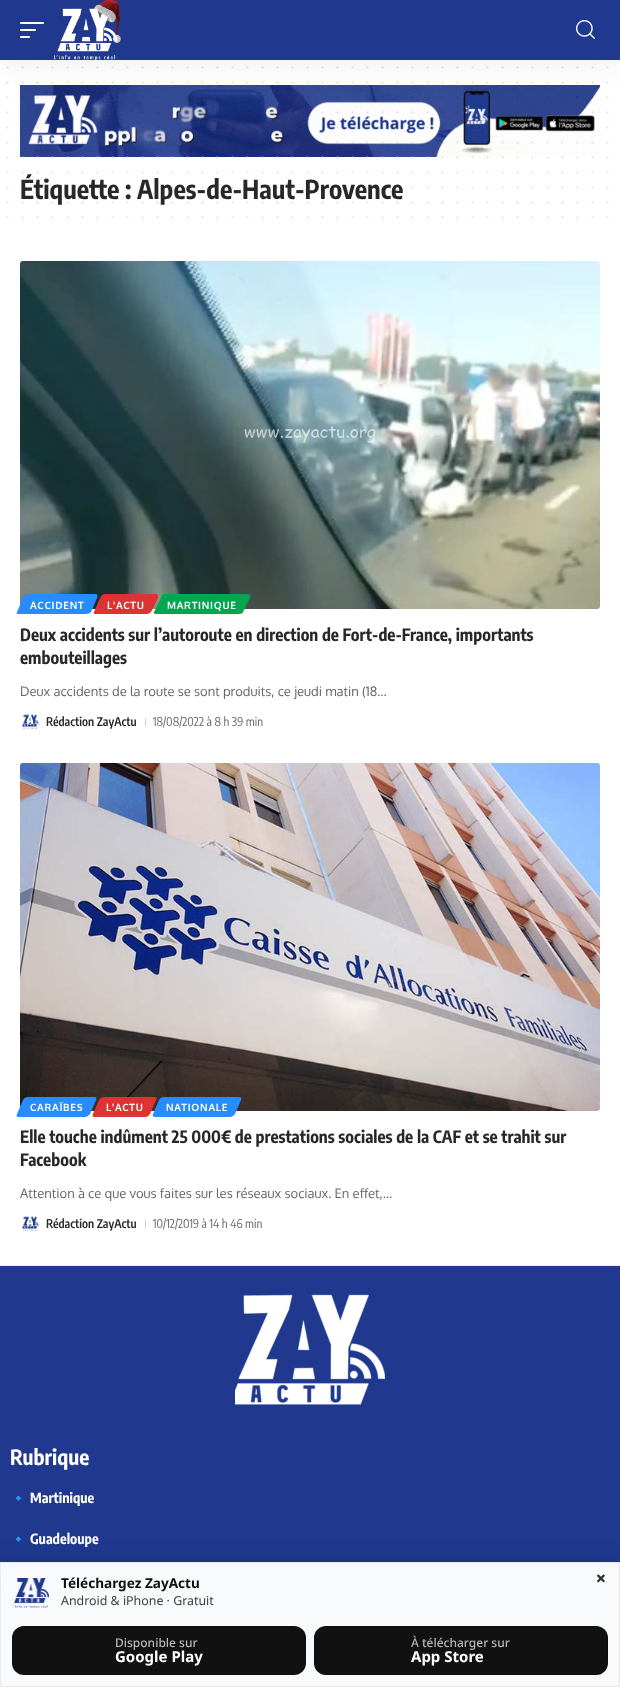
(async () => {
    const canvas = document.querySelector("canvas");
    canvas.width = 620;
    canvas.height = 1687;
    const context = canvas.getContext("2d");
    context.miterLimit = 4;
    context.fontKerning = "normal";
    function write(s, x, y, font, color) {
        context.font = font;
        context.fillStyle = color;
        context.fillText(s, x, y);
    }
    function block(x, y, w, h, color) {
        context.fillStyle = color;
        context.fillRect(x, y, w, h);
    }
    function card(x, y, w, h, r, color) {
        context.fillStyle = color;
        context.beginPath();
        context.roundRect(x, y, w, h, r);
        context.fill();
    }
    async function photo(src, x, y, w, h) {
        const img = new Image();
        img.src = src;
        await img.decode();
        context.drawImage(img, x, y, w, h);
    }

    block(0, 0, 620, 1687, "rgb(255, 255, 255)");
    context.beginPath();
    context.moveTo(7.5, 67.5);
    context.lineTo(607.7, 67.5);
    context.strokeStyle = "rgb(223, 223, 223)";
    context.lineWidth = 2;
    context.lineCap = "round";
    context.setLineDash([0, 15]);
    context.stroke();
    context.beginPath();
    context.moveTo(7.5, 82.5);
    context.lineTo(607.7, 82.5);
    context.stroke();
    await photo("media/3.png", 20, 85, 580, 72);
    context.beginPath();
    context.moveTo(7.5, 97.5);
    context.lineTo(607.7, 97.5);
    context.strokeStyle = "rgba(40, 40, 40, 0.15)";
    context.stroke();
    context.fillStyle = "rgba(0, 0, 0, 0.07)";
    context.filter = "blur(15px)";
    context.beginPath();
    context.rect(0, 4, 620, 60);
    context.fill();
    context.filter = "none";
    block(0, 0, 620, 60, "rgb(32, 57, 142)");
    card(20, 22, 24, 2, 1, "rgb(255, 255, 255)");
    card(20, 29, 16, 2, 1, "rgb(255, 255, 255)");
    card(20, 36, 10, 2, 1, "rgb(255, 255, 255)");
    await photo("media/1.png", 54, 0, 67, 60);
    await photo("media/2.png", 576, 20, 19, 19);
    context.beginPath();
    context.moveTo(7.5, 112.5);
    context.lineTo(607.7, 112.5);
    context.stroke();
    context.beginPath();
    context.moveTo(7.5, 127.5);
    context.lineTo(607.7, 127.5);
    context.stroke();
    context.beginPath();
    context.moveTo(7.5, 142.5);
    context.lineTo(607.7, 142.5);
    context.stroke();
    context.beginPath();
    context.moveTo(7.5, 157.5);
    context.lineTo(607.7, 157.5);
    context.strokeStyle = "rgb(223, 223, 223)";
    context.stroke();
    context.beginPath();
    context.moveTo(7.5, 172.5);
    context.lineTo(607.7, 172.5);
    context.stroke();
    write("Étiquette : Alpes-de-Haut-Provence", 20, 199, "bold 26px Encode Sans Condensed", "rgb(40, 40, 40)");
    context.beginPath();
    context.moveTo(7.5, 187.5);
    context.lineTo(607.7, 187.5);
    context.strokeStyle = "rgba(40, 40, 40, 0.15)";
    context.stroke();
    context.beginPath();
    context.moveTo(7.5, 202.5);
    context.lineTo(607.7, 202.5);
    context.strokeStyle = "rgb(223, 223, 223)";
    context.stroke();
    context.beginPath();
    context.moveTo(7.5, 217.5);
    context.lineTo(607.7, 217.5);
    context.stroke();
    await photo("media/4.png", 20, 261, 580, 348);
    context.fillStyle = "rgb(40, 140, 255)";
    context.beginPath();
    context.moveTo(28, 594);
    context.lineTo(96, 594);
    context.bezierCurveTo(97, 594, 98, 596, 97, 598);
    context.lineTo(91, 612);
    context.bezierCurveTo(90, 613, 88, 614, 86, 614);
    context.lineTo(18, 614);
    context.bezierCurveTo(17, 614, 16, 613, 17, 612);
    context.lineTo(23, 598);
    context.bezierCurveTo(24, 596, 26, 594, 28, 594);
    context.closePath();
    context.fill();
    context.letterSpacing = "0.75px";
    write("ACCIDENT", 30, 609, "bold 10px Oxygen", "rgb(255, 255, 255)");
    context.fillStyle = "rgb(221, 51, 51)";
    context.beginPath();
    context.moveTo(105, 594);
    context.lineTo(156, 594);
    context.bezierCurveTo(158, 594, 158, 596, 158, 598);
    context.lineTo(151, 612);
    context.bezierCurveTo(150, 613, 148, 614, 147, 614);
    context.lineTo(95, 614);
    context.bezierCurveTo(94, 614, 93, 613, 94, 612);
    context.lineTo(100, 598);
    context.bezierCurveTo(101, 596, 103, 594, 105, 594);
    context.closePath();
    context.fill();
    write("L'ACTU", 107, 609, "bold 10px Oxygen", "rgb(255, 255, 255)");
    context.fillStyle = "rgb(0, 166, 80)";
    context.beginPath();
    context.moveTo(165, 594);
    context.lineTo(248, 594);
    context.bezierCurveTo(250, 594, 251, 596, 250, 598);
    context.lineTo(243, 612);
    context.bezierCurveTo(243, 613, 241, 614, 239, 614);
    context.lineTo(156, 614);
    context.bezierCurveTo(154, 614, 153, 613, 154, 612);
    context.lineTo(161, 598);
    context.bezierCurveTo(161, 596, 163, 594, 165, 594);
    context.closePath();
    context.fill();
    write("MARTINIQUE", 167, 609, "bold 10px Oxygen", "rgb(255, 255, 255)");
    context.letterSpacing = "0px";
    write("Deux accidents sur l’autoroute en direction de Fort-de-France, importants", 20, 641, "bold 17px Encode Sans Condensed", "rgb(40, 40, 40)");
    write("embouteillages", 20, 664, "bold 17px Encode Sans Condensed", "rgb(40, 40, 40)");
    write("Deux accidents de la route se sont produits, ce jeudi matin (18…", 20, 696, "13px Oxygen", "rgb(102, 102, 102)");
    await photo("media/5.png", 21, 714, 19, 16);
    write("Rédaction ZayActu", 46, 726, "600 12px Encode Sans Condensed", "rgb(40, 40, 40)");
    block(145, 718, 1, 8, "rgb(209, 209, 209)");
    write("18/08/2022 à 8 h 39 min", 153, 726, "12px Encode Sans Condensed", "rgb(102, 102, 102)");
    await photo("media/6.png", 20, 763, 580, 348);
    context.fillStyle = "rgb(40, 140, 255)";
    context.beginPath();
    context.moveTo(28, 1097);
    context.lineTo(95, 1097);
    context.bezierCurveTo(96, 1097, 97, 1098, 96, 1100);
    context.lineTo(90, 1114);
    context.bezierCurveTo(89, 1115, 87, 1117, 85, 1117);
    context.lineTo(18, 1117);
    context.bezierCurveTo(17, 1117, 16, 1115, 17, 1114);
    context.lineTo(23, 1100);
    context.bezierCurveTo(24, 1098, 26, 1097, 28, 1097);
    context.closePath();
    context.fill();
    context.letterSpacing = "0.75px";
    write("CARAÏBES", 30, 1111, "bold 10px Oxygen", "rgb(255, 255, 255)");
    context.fillStyle = "rgb(221, 51, 51)";
    context.beginPath();
    context.moveTo(104, 1097);
    context.lineTo(155, 1097);
    context.bezierCurveTo(157, 1097, 157, 1098, 156, 1100);
    context.lineTo(150, 1114);
    context.bezierCurveTo(149, 1115, 147, 1117, 146, 1117);
    context.lineTo(94, 1117);
    context.bezierCurveTo(93, 1117, 92, 1115, 93, 1114);
    context.lineTo(99, 1100);
    context.bezierCurveTo(100, 1098, 102, 1097, 104, 1097);
    context.closePath();
    context.fill();
    write("L'ACTU", 106, 1111, "bold 10px Oxygen", "rgb(255, 255, 255)");
    context.fillStyle = "rgb(40, 140, 255)";
    context.beginPath();
    context.moveTo(164, 1097);
    context.lineTo(239, 1097);
    context.bezierCurveTo(241, 1097, 242, 1098, 241, 1100);
    context.lineTo(235, 1114);
    context.bezierCurveTo(234, 1115, 232, 1117, 230, 1117);
    context.lineTo(155, 1117);
    context.bezierCurveTo(153, 1117, 152, 1115, 153, 1114);
    context.lineTo(159, 1100);
    context.bezierCurveTo(160, 1098, 162, 1097, 164, 1097);
    context.closePath();
    context.fill();
    write("NATIONALE", 166, 1111, "bold 10px Oxygen", "rgb(255, 255, 255)");
    context.letterSpacing = "0px";
    write("Elle touche indûment 25 000€ de prestations sociales de la CAF et se trahit sur", 20, 1143, "bold 17px Encode Sans Condensed", "rgb(40, 40, 40)");
    write("Facebook", 20, 1166, "bold 17px Encode Sans Condensed", "rgb(40, 40, 40)");
    write("Attention à ce que vous faites sur les réseaux sociaux. En effet,…", 20, 1198, "13px Oxygen", "rgb(102, 102, 102)");
    await photo("media/5.png", 21, 1216, 19, 16);
    write("Rédaction ZayActu", 46, 1228, "600 12px Encode Sans Condensed", "rgb(40, 40, 40)");
    block(145, 1220, 1, 8, "rgb(209, 209, 209)");
    write("10/12/2019 à 14 h 46 min", 153, 1228, "12px Encode Sans Condensed", "rgb(102, 102, 102)");
    block(0, 1265, 620, 1, "rgb(237, 237, 237)");
    block(0, 1266, 620, 296, "rgb(32, 57, 142)");
    await photo("media/7.png", 235, 1294, 150, 111);
    write("Rubrique", 10, 1465, "bold 21px Encode Sans Condensed", "rgb(255, 255, 255)");
    write("🔹", 10, 1503, "bold 14px Noto Color Emoji", "rgb(255, 255, 255)");
    write("Martinique", 30, 1503, "bold 14px Encode Sans Condensed", "rgb(255, 255, 255)");
    write("🔹", 10, 1544, "bold 14px Noto Color Emoji", "rgb(255, 255, 255)");
    write("Guadeloupe", 30, 1544, "bold 14px Encode Sans Condensed", "rgb(255, 255, 255)");
    context.fillStyle = "rgba(0, 0, 0, 0.25)";
    context.filter = "blur(15px)";
    context.beginPath();
    context.rect(0, 1572, 620, 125);
    context.fill();
    context.filter = "none";
    context.fillStyle = "rgb(248, 250, 252)";
    context.beginPath();
    context.rect(0.5, 1562.5, 619, 124);
    context.fill();
    context.strokeStyle = "rgb(229, 231, 235)";
    context.lineWidth = 1;
    context.setLineDash([]);
    context.stroke();
    await photo("media/8.png", 12, 1578, 37, 30);
    write("Téléchargez ZayActu", 61, 1588, "bold 13.6px Noto Sans", "rgb(17, 17, 17)");
    write("Android & iPhone · Gratuit", 61, 1605, "12.4px Noto Sans", "rgb(63, 64, 64)");
    write("×", 596, 1586, "bold 20px Encode Sans Condensed", "rgb(52, 52, 52)");
    card(12, 1626, 294, 49, 12, "rgb(17, 17, 17)");
    context.beginPath();
    context.roundRect(12.5, 1626.5, 293, 48, 11.5);
    context.strokeStyle = "rgba(0, 0, 0, 0.12)";
    context.stroke();
    write("Disponible sur", 115, 1647, "500 12px Noto Sans", "rgb(184, 184, 184)");
    write("Google Play", 115, 1662, "bold 15px Noto Sans", "rgb(255, 255, 255)");
    card(314, 1626, 294, 49, 12, "rgb(17, 17, 17)");
    context.beginPath();
    context.roundRect(314.5, 1626.5, 293, 48, 11.5);
    context.stroke();
    write("À télécharger sur", 411, 1647, "500 12px Noto Sans", "rgb(184, 184, 184)");
    write("App Store", 411, 1662, "bold 15px Noto Sans", "rgb(255, 255, 255)");
})();
